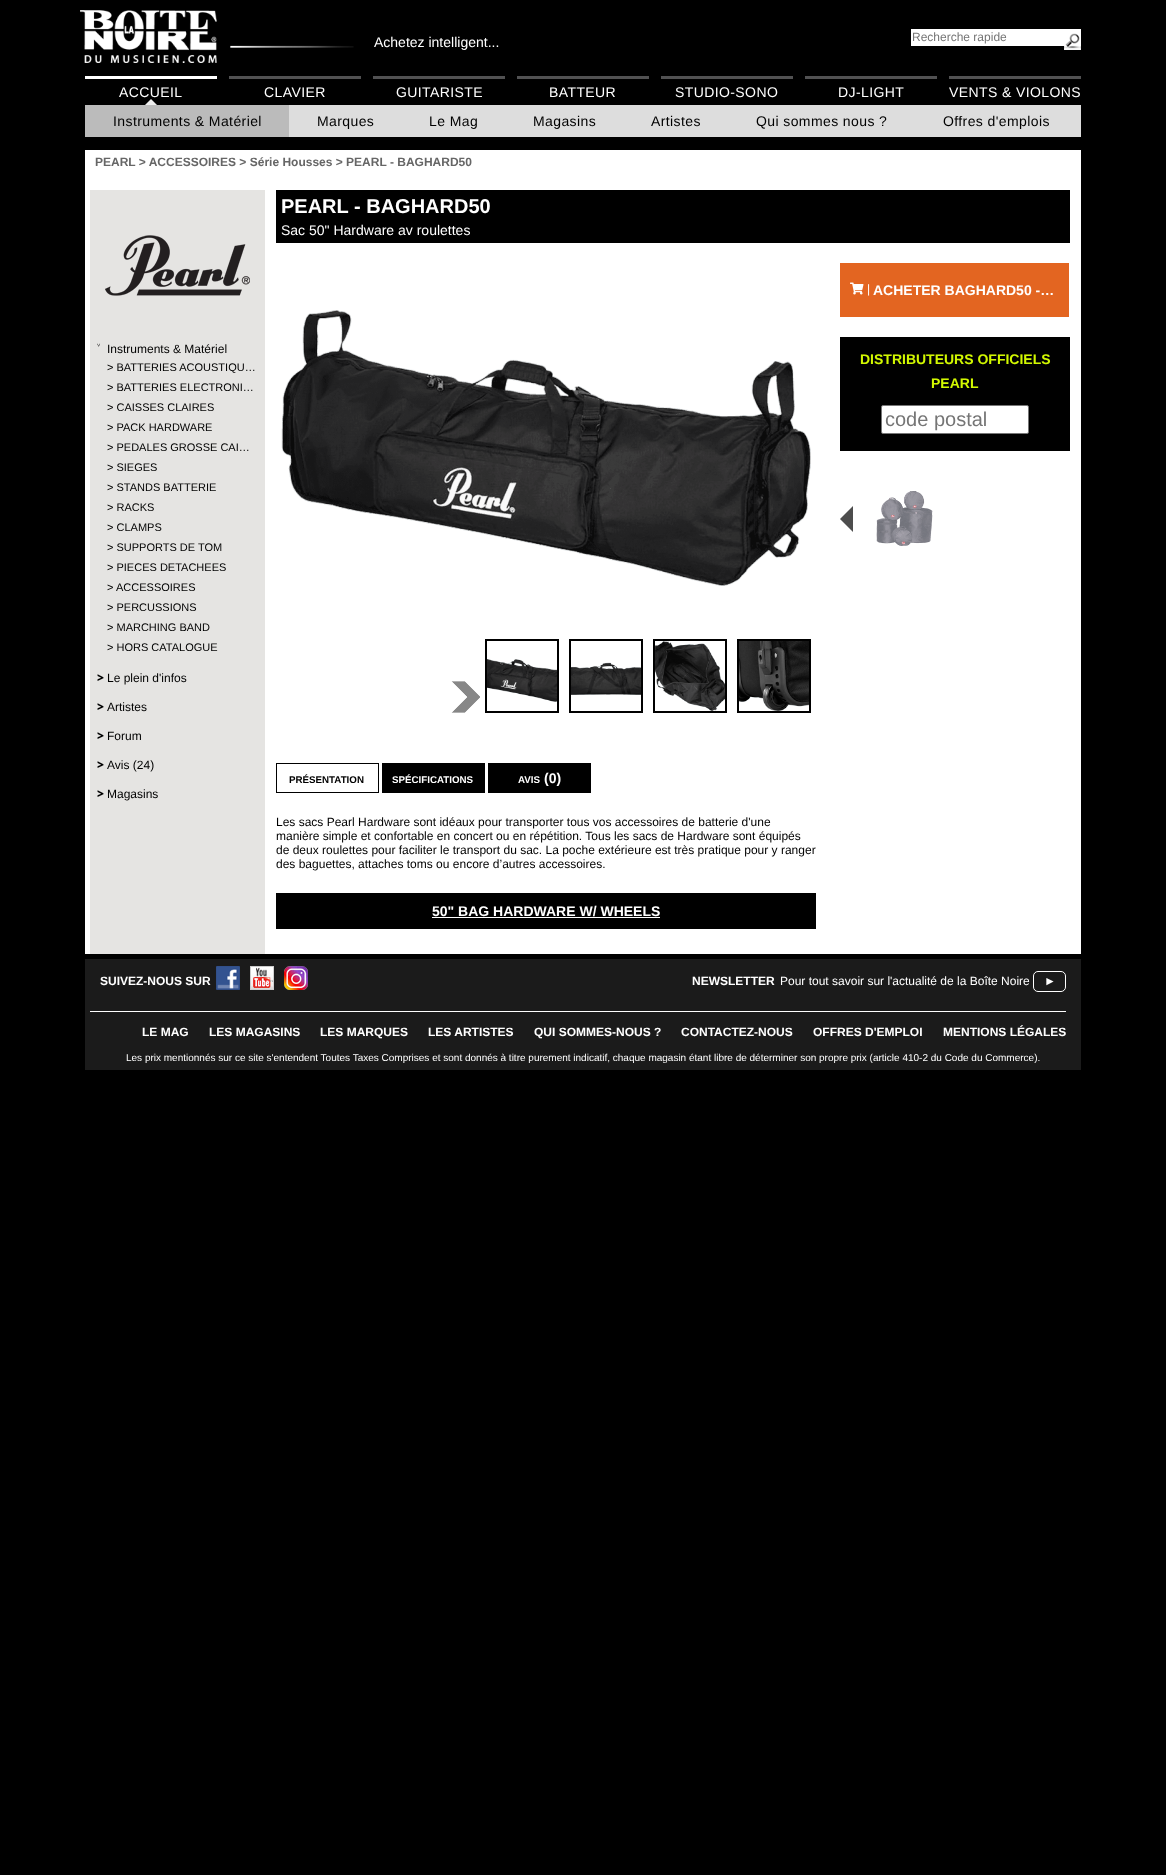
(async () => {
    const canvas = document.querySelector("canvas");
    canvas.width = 1166;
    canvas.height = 1875;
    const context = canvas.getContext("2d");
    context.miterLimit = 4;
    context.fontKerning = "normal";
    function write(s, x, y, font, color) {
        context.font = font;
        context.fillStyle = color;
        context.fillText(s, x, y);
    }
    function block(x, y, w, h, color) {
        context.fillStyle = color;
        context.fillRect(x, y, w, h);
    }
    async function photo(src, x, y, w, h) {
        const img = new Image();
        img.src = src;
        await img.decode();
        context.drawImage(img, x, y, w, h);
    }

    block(0, 0, 1166, 1875, "rgb(0, 0, 0)");
    await photo("media/1.png", 230, 45, 124, 3);
    await photo("media/2.png", 80, 10, 137, 53);
    write("Achetez intelligent...", 374, 47, "14px Liberation Sans", "rgb(255, 255, 255)");
    block(911, 29, 170, 17, "rgb(255, 255, 255)");
    write("Recherche rapide", 912, 41, "12px Liberation Sans", "rgb(117, 117, 117)");
    await photo("media/3.png", 1064, 33, 17, 17);
    block(85, 76, 132, 3, "rgb(255, 255, 255)");
    context.letterSpacing = "0.4px";
    write("ACCUEIL", 119, 97, "14px Liberation Sans", "rgb(255, 255, 255)");
    context.fillStyle = "rgb(238, 238, 238)";
    context.beginPath();
    context.moveTo(157, 105);
    context.lineTo(145, 105);
    context.lineTo(151, 99);
    context.closePath();
    context.fill();
    block(289, 105, 792, 32, "rgb(221, 221, 221)");
    block(85, 105, 204, 32, "rgb(187, 187, 187)");
    write("Instruments & Matériel", 113, 126, "14px Liberation Sans", "rgb(0, 0, 0)");
    write("Marques", 317, 126, "14px Liberation Sans", "rgb(0, 0, 0)");
    write("Le Mag", 429, 126, "14px Liberation Sans", "rgb(0, 0, 0)");
    write("Magasins", 533, 126, "14px Liberation Sans", "rgb(0, 0, 0)");
    write("Artistes", 651, 126, "14px Liberation Sans", "rgb(0, 0, 0)");
    write("Qui sommes nous ?", 756, 126, "14px Liberation Sans", "rgb(0, 0, 0)");
    write("Offres d'emplois", 943, 126, "14px Liberation Sans", "rgb(0, 0, 0)");
    block(229, 76, 132, 3, "rgb(81, 81, 82)");
    write("CLAVIER", 264, 97, "14px Liberation Sans", "rgb(255, 255, 255)");
    block(373, 76, 132, 3, "rgb(81, 81, 82)");
    write("GUITARISTE", 396, 97, "14px Liberation Sans", "rgb(255, 255, 255)");
    block(517, 76, 132, 3, "rgb(81, 81, 82)");
    write("BATTEUR", 549, 97, "14px Liberation Sans", "rgb(255, 255, 255)");
    block(661, 76, 132, 3, "rgb(81, 81, 82)");
    write("STUDIO-SONO", 675, 97, "14px Liberation Sans", "rgb(255, 255, 255)");
    block(805, 76, 132, 3, "rgb(81, 81, 82)");
    write("DJ-LIGHT", 838, 97, "14px Liberation Sans", "rgb(255, 255, 255)");
    block(949, 76, 132, 3, "rgb(81, 81, 82)");
    write("VENTS & VIOLONS", 949, 97, "14px Liberation Sans", "rgb(255, 255, 255)");
    block(85, 150, 996, 804, "rgb(255, 255, 255)");
    context.letterSpacing = "0px";
    write("PEARL > ACCESSOIRES > Série Housses > PEARL - BAGHARD50", 95, 166, "bold 12px Liberation Sans", "rgb(102, 102, 102)");
    block(90, 190, 175, 764, "rgb(229, 228, 226)");
    await photo("media/4.png", 105, 235, 145, 61);
    write("˅", 97, 353, "12px Noto Sans", "rgb(0, 0, 0)");
    write("Instruments & Matériel", 107, 353, "12px Liberation Sans", "rgb(0, 0, 0)");
    write("> BATTERIES ACOUSTIQU…", 107, 371, "11px Liberation Sans", "rgb(0, 0, 0)");
    write("> BATTERIES ELECTRONI…", 107, 391, "11px Liberation Sans", "rgb(0, 0, 0)");
    write("> CAISSES CLAIRES", 107, 411, "11px Liberation Sans", "rgb(0, 0, 0)");
    write("> PACK HARDWARE", 107, 431, "11px Liberation Sans", "rgb(0, 0, 0)");
    write("> PEDALES GROSSE CAI…", 107, 451, "11px Liberation Sans", "rgb(0, 0, 0)");
    write("> SIEGES", 107, 471, "11px Liberation Sans", "rgb(0, 0, 0)");
    write("> STANDS BATTERIE", 107, 491, "11px Liberation Sans", "rgb(0, 0, 0)");
    write("> RACKS", 107, 511, "11px Liberation Sans", "rgb(0, 0, 0)");
    write("> CLAMPS", 107, 531, "11px Liberation Sans", "rgb(0, 0, 0)");
    write("> SUPPORTS DE TOM", 107, 551, "11px Liberation Sans", "rgb(0, 0, 0)");
    write("> PIECES DETACHEES", 107, 571, "11px Liberation Sans", "rgb(0, 0, 0)");
    write(">", 107, 591, "11px Liberation Sans", "rgb(0, 0, 0)");
    write("ACCESSOIRES", 116, 591, "11px Liberation Sans", "rgb(0, 0, 0)");
    write("> PERCUSSIONS", 107, 611, "11px Liberation Sans", "rgb(0, 0, 0)");
    write("> MARCHING BAND", 107, 631, "11px Liberation Sans", "rgb(0, 0, 0)");
    write("> HORS CATALOGUE", 107, 651, "11px Liberation Sans", "rgb(0, 0, 0)");
    write(">", 97, 682, "900 12px Noto Sans", "rgb(0, 0, 0)");
    write("Le plein d'infos", 107, 682, "12px Liberation Sans", "rgb(0, 0, 0)");
    write(">", 97, 711, "900 12px Noto Sans", "rgb(0, 0, 0)");
    write("Artistes", 107, 711, "12px Liberation Sans", "rgb(0, 0, 0)");
    write(">", 97, 740, "900 12px Noto Sans", "rgb(0, 0, 0)");
    write("Forum", 107, 740, "12px Liberation Sans", "rgb(0, 0, 0)");
    write(">", 97, 769, "900 12px Noto Sans", "rgb(0, 0, 0)");
    write("Avis (24)", 107, 769, "12px Liberation Sans", "rgb(0, 0, 0)");
    write(">", 97, 798, "900 12px Noto Sans", "rgb(0, 0, 0)");
    write("Magasins", 107, 798, "12px Liberation Sans", "rgb(0, 0, 0)");
    block(276, 190, 794, 53, "rgb(0, 0, 0)");
    write("PEARL", 281, 213, "bold 20px Liberation Sans", "rgb(255, 255, 255)");
    write("- BAGHARD50", 354, 213, "bold 20px Liberation Sans", "rgb(255, 255, 255)");
    write("Sac 50\" Hardware av roulettes", 281, 235, "14px Liberation Sans", "rgb(255, 255, 255)");
    block(840, 263, 229, 54, "rgb(227, 101, 33)");
    await photo("media/5.png", 850, 282, 14, 13);
    write("|", 867, 293, "12px Liberation Sans", "rgb(255, 255, 255)");
    write("ACHETER BAGHARD50 -…", 873, 295, "bold 14px Liberation Sans", "rgb(255, 255, 255)");
    block(840, 337, 230, 114, "rgb(0, 0, 0)");
    write("DISTRIBUTEURS OFFICIELS", 860, 364, "bold 14px Liberation Sans", "rgb(210, 248, 0)");
    write("PEARL", 931, 388, "bold 14px Liberation Sans", "rgb(210, 248, 0)");
    context.fillStyle = "rgb(255, 255, 255)";
    context.beginPath();
    context.roundRect(881.5, 405.5, 147, 28, 1.5);
    context.fill();
    context.strokeStyle = "rgb(118, 118, 118)";
    context.stroke();
    write("code postal", 885, 426, "20px Liberation Sans", "rgb(117, 117, 117)");
    context.fillStyle = "rgb(77, 77, 77)";
    context.beginPath();
    context.moveTo(853, 506);
    context.lineTo(853, 532);
    context.lineTo(840, 519);
    context.closePath();
    context.fill();
    await photo("media/6.png", 876, 491, 57, 55);
    await photo("media/7.png", 281, 310, 530, 276);
    await photo("media/8.png", 451, 681, 29, 32);
    context.strokeStyle = "rgb(0, 0, 0)";
    context.lineWidth = 2;
    context.strokeRect(486, 640, 72, 72);
    await photo("media/9.png", 487, 659, 70, 43);
    context.strokeRect(570, 640, 72, 72);
    await photo("media/10.png", 571, 662, 70, 33);
    context.strokeRect(654, 640, 72, 72);
    await photo("media/11.png", 655, 641, 70, 70);
    context.strokeRect(738, 640, 72, 72);
    await photo("media/12.png", 739, 641, 70, 70);
    context.lineWidth = 1;
    context.strokeRect(276.5, 763.5, 102, 29);
    write("PRÉSENTATION", 289, 783, "bold 9.75px Liberation Sans", "rgb(0, 0, 0)");
    block(382, 763, 103, 30, "rgb(0, 0, 0)");
    write("SPÉCIFICATIONS", 392, 783, "bold 9.75px Liberation Sans", "rgb(255, 255, 255)");
    block(488, 763, 103, 30, "rgb(0, 0, 0)");
    write("AVIS", 518, 783, "bold 9.75px Liberation Sans", "rgb(255, 255, 255)");
    write("(0)", 544, 783, "bold 14px Liberation Sans", "rgb(255, 255, 255)");
    write("Les sacs Pearl Hardware sont idéaux pour transporter tous vos accessoires de batterie d'une", 276, 826, "12px Liberation Sans", "rgb(0, 0, 0)");
    write("manière simple et confortable en concert ou en répétition. Tous les sacs de Hardware sont équipés", 276, 840, "12px Liberation Sans", "rgb(0, 0, 0)");
    write("de deux roulettes pour faciliter le transport du sac. La poche extérieure est très pratique pour y ranger", 276, 854, "12px Liberation Sans", "rgb(0, 0, 0)");
    write("des baguettes, attaches toms ou encore d’autres accessoires.", 276, 868, "12px Liberation Sans", "rgb(0, 0, 0)");
    block(276, 893, 540, 36, "rgb(0, 0, 0)");
    write("50\" BAG HARDWARE W/ WHEELS", 432, 916, "bold 14px Liberation Sans", "rgb(255, 255, 255)");
    block(432, 917, 228, 1, "rgb(255, 255, 255)");
    block(85, 959, 996, 111, "rgb(27, 27, 27)");
    write("SUIVEZ-NOUS SUR", 100, 985, "bold 12px Liberation Sans", "rgb(255, 255, 255)");
    await photo("media/13.png", 216, 966, 24, 24);
    await photo("media/14.png", 250, 966, 24, 24);
    await photo("media/15.png", 284, 966, 24, 24);
    write("NEWSLETTER", 692, 985, "bold 12px Liberation Sans", "rgb(255, 255, 255)");
    write("Pour tout savoir sur l'actualité de la Boîte Noire", 780, 985, "12px Liberation Sans", "rgb(255, 255, 255)");
    context.beginPath();
    context.roundRect(1033.5, 971.5, 32, 20, 4.5);
    context.strokeStyle = "rgb(255, 255, 255)";
    context.stroke();
    write("►", 1044, 985, "12px Liberation Sans", "rgb(255, 255, 255)");
    block(90, 1011, 976, 1, "rgb(255, 255, 255)");
    write("LE MAG", 142, 1036, "bold 12px Liberation Sans", "rgb(255, 255, 255)");
    write("LES MAGASINS", 209, 1036, "bold 12px Liberation Sans", "rgb(255, 255, 255)");
    write("LES MARQUES", 320, 1036, "bold 12px Liberation Sans", "rgb(255, 255, 255)");
    write("LES ARTISTES", 428, 1036, "bold 12px Liberation Sans", "rgb(255, 255, 255)");
    write("QUI SOMMES-NOUS ?", 534, 1036, "bold 12px Liberation Sans", "rgb(255, 255, 255)");
    write("CONTACTEZ-NOUS", 681, 1036, "bold 12px Liberation Sans", "rgb(255, 255, 255)");
    write("OFFRES D'EMPLOI", 813, 1036, "bold 12px Liberation Sans", "rgb(255, 255, 255)");
    write("MENTIONS LÉGALES", 943, 1036, "bold 12px Liberation Sans", "rgb(255, 255, 255)");
    write("Les prix mentionnés sur ce site s'entendent Toutes Taxes Comprises et sont donnés à titre purement indicatif, chaque magasin étant libre de déterminer son propre prix (article 410-2 du Code du Commerce).", 126, 1061, "10px Liberation Sans", "rgb(255, 255, 255)");
})();
